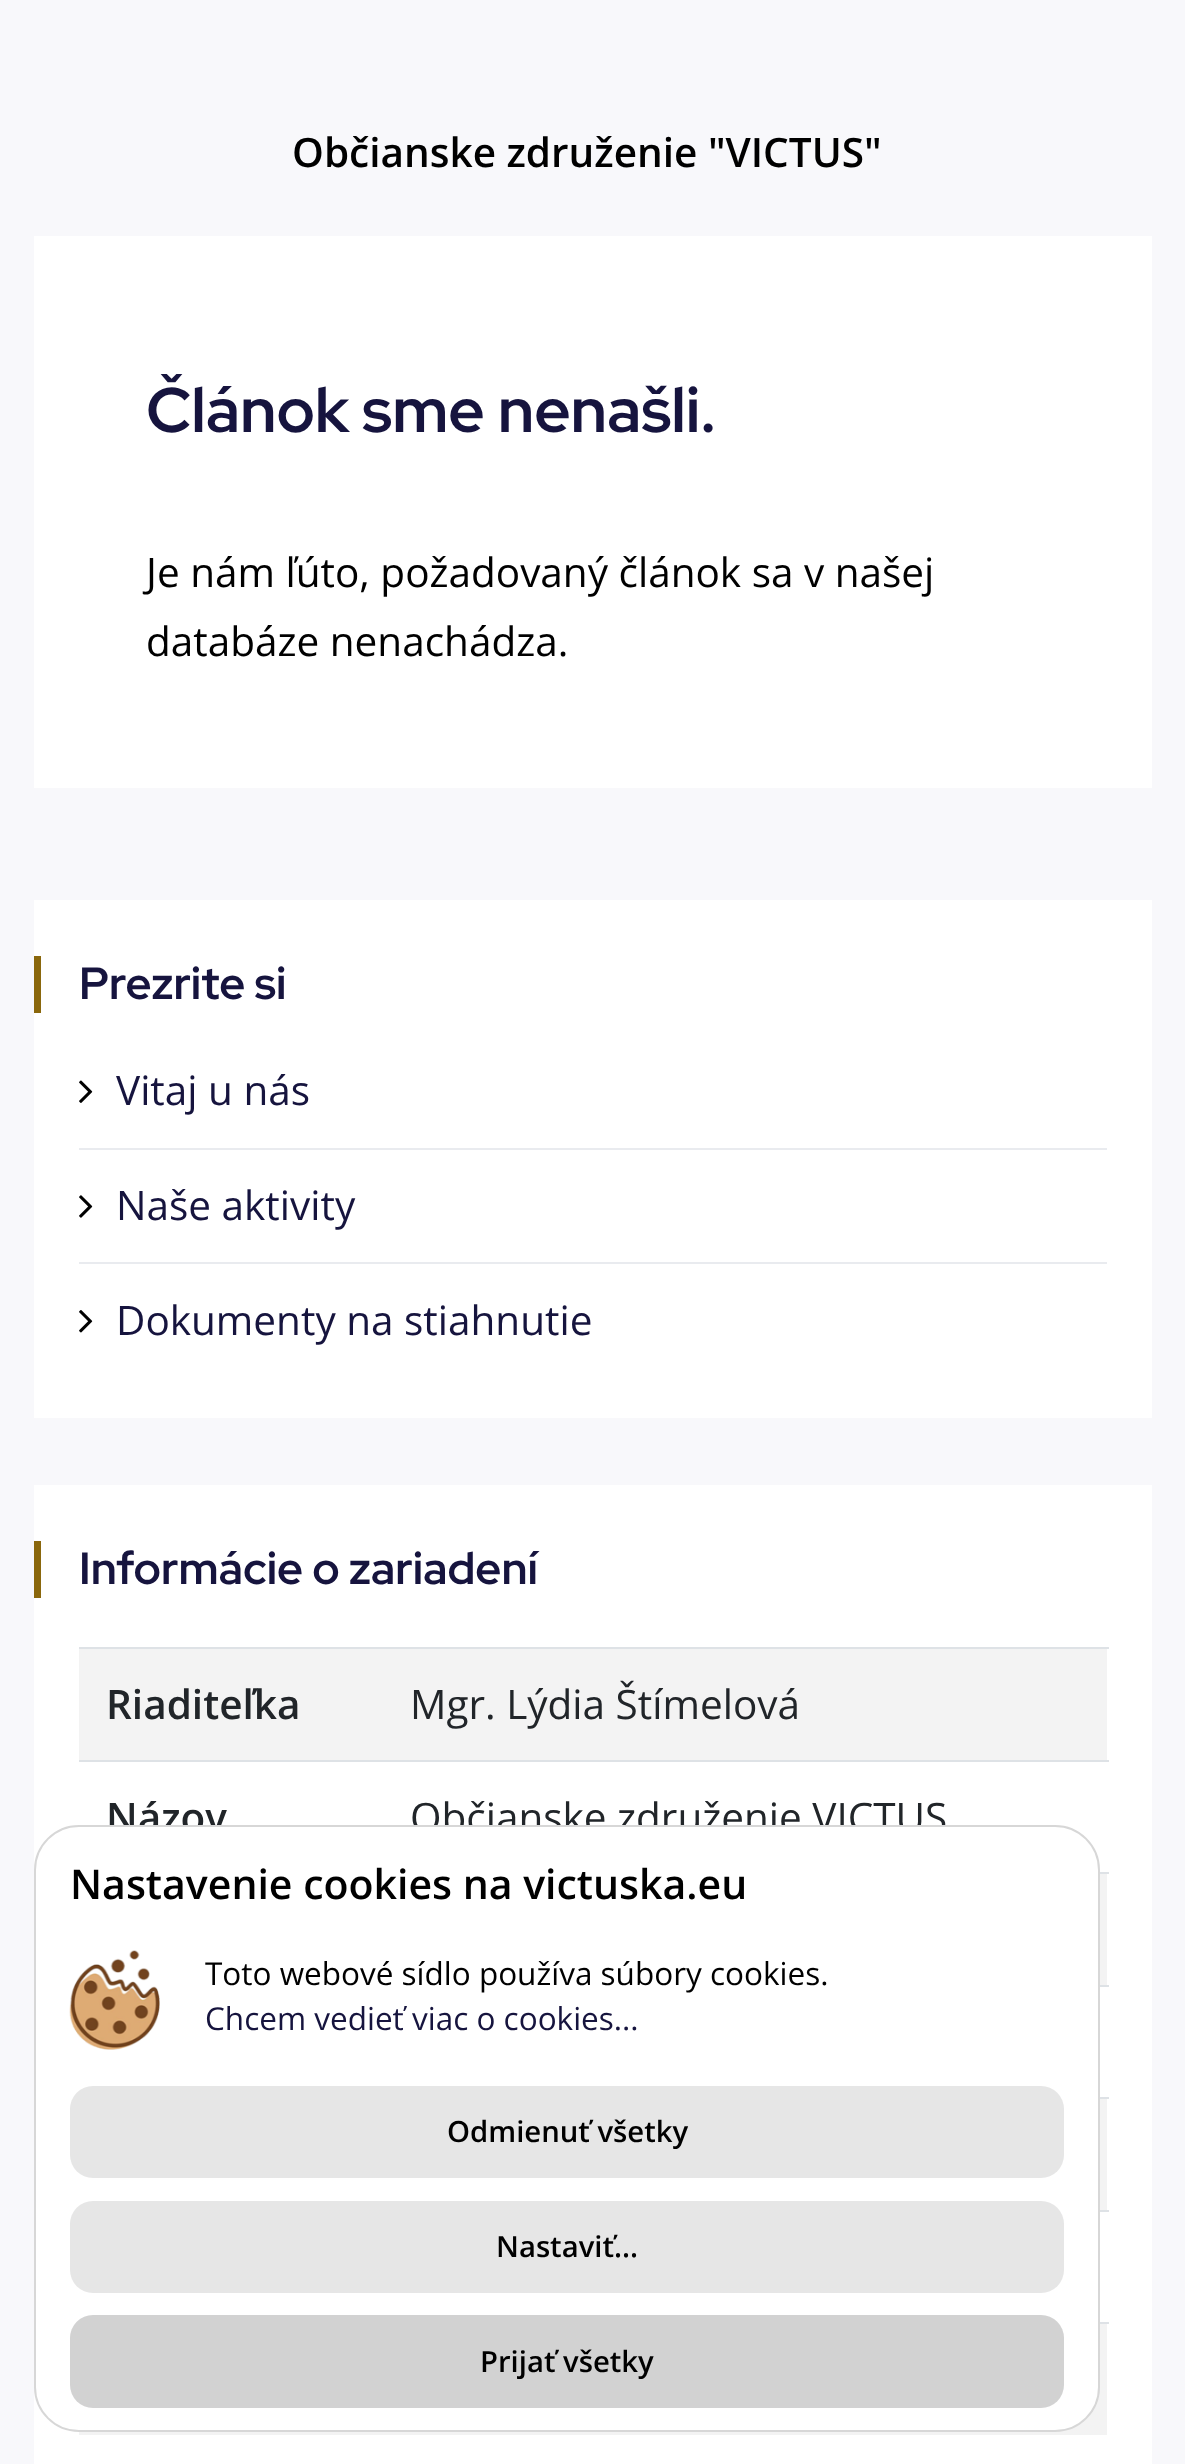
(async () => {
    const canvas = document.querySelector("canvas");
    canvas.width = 1185;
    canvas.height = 2464;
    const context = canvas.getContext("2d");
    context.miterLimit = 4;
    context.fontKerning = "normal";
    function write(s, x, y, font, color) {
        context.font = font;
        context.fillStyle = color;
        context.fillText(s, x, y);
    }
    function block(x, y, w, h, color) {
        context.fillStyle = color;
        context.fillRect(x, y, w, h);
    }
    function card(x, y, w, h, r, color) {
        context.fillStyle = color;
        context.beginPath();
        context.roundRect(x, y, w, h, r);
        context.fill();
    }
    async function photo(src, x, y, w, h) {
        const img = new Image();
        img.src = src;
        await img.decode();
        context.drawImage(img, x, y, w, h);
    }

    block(0, 0, 1185, 2464, "rgb(248, 248, 251)");
    write("Občianske združenie \"VICTUS\"", 292, 167, "600 40.5px Open Sans", "rgb(0, 0, 0)");
    block(34, 236, 1118, 552, "rgb(255, 255, 255)");
    write("Článok sme nenašli.", 146, 432, "bold 63px Red Hat Display", "rgb(22, 20, 62)");
    write("Je nám ľúto, požadovaný článok sa v našej", 146, 587, "40.5px Open Sans", "rgb(0, 0, 0)");
    write("databáze nenachádza.", 146, 656, "40.5px Open Sans", "rgb(0, 0, 0)");
    block(34, 900, 1118, 518, "rgb(255, 255, 255)");
    block(34, 956, 7, 57, "rgb(138, 103, 12)");
    write("Prezrite si", 79, 999, "bold 45px Red Hat Display", "rgb(22, 20, 62)");
    await photo("media/1.png", 79, 1080, 14, 23);
    write("Vitaj u nás", 116, 1105, "40.5px Open Sans", "rgb(22, 20, 62)");
    block(79, 1148, 1028, 2, "rgb(233, 235, 239)");
    await photo("media/2.png", 79, 1195, 14, 23);
    write("Naše aktivity", 116, 1220, "40.5px Open Sans", "rgb(22, 20, 62)");
    block(79, 1262, 1028, 2, "rgb(233, 235, 239)");
    await photo("media/3.png", 79, 1310, 14, 23);
    write("Dokumenty na stiahnutie", 116, 1335, "40.5px Open Sans", "rgb(22, 20, 62)");
    block(34, 1485, 1118, 979, "rgb(255, 255, 255)");
    block(34, 1541, 7, 57, "rgb(138, 103, 12)");
    write("Informácie o zariadení", 79, 1584, "bold 45px Red Hat Display", "rgb(22, 20, 62)");
    block(79, 1649, 1028, 111, "rgb(243, 243, 243)");
    write("Riaditeľka", 106, 1719, "600 40.5px Open Sans", "rgb(33, 37, 41)");
    block(79, 1647, 1030, 2, "rgb(222, 226, 230)");
    write("Mgr. Lýdia Štímelová", 410, 1719, "40.5px Open Sans", "rgb(33, 37, 41)");
    write("Názov", 106, 1832, "600 40.5px Open Sans", "rgb(33, 37, 41)");
    block(79, 1760, 1030, 2, "rgb(222, 226, 230)");
    write("Občianske združenie VICTUS", 410, 1832, "40.5px Open Sans", "rgb(33, 37, 41)");
    block(1100, 1874, 7, 111, "rgb(243, 243, 243)");
    block(1100, 1872, 9, 2, "rgb(222, 226, 230)");
    block(1100, 1985, 9, 2, "rgb(222, 226, 230)");
    block(1100, 2099, 7, 111, "rgb(243, 243, 243)");
    block(1100, 2097, 9, 2, "rgb(222, 226, 230)");
    block(1100, 2210, 9, 2, "rgb(222, 226, 230)");
    block(79, 2324, 1028, 111, "rgb(243, 243, 243)");
    block(1100, 2322, 9, 2, "rgb(222, 226, 230)");
    context.fillStyle = "rgb(255, 255, 255)";
    context.beginPath();
    context.roundRect(35, 1826, 1064, 605, 44);
    context.fill();
    context.strokeStyle = "rgb(215, 215, 215)";
    context.lineWidth = 2;
    context.stroke();
    write("Nastavenie cookies na victuska.eu", 70, 1899, "600 41px Open Sans", "rgb(0, 0, 0)");
    await photo("media/4.png", 69, 1950, 91, 100);
    write("Toto webové sídlo používa súbory cookies.", 205, 1985, "31.5px Open Sans", "rgb(0, 0, 0)");
    write("Chcem vedieť viac o cookies...", 205, 2030, "31.5px Open Sans", "rgb(22, 20, 62)");
    card(70, 2086, 994, 92, 23, "rgb(230, 230, 230)");
    write("Odmienuť všetky", 447, 2142, "600 29.25px Open Sans", "rgb(0, 0, 0)");
    card(70, 2201, 994, 92, 23, "rgb(230, 230, 230)");
    write("Nastaviť...", 496, 2257, "600 29.25px Open Sans", "rgb(0, 0, 0)");
    card(70, 2315, 994, 93, 23, "rgb(210, 210, 210)");
    write("Prijať všetky", 480, 2372, "600 29.25px Open Sans", "rgb(0, 0, 0)");
})();
